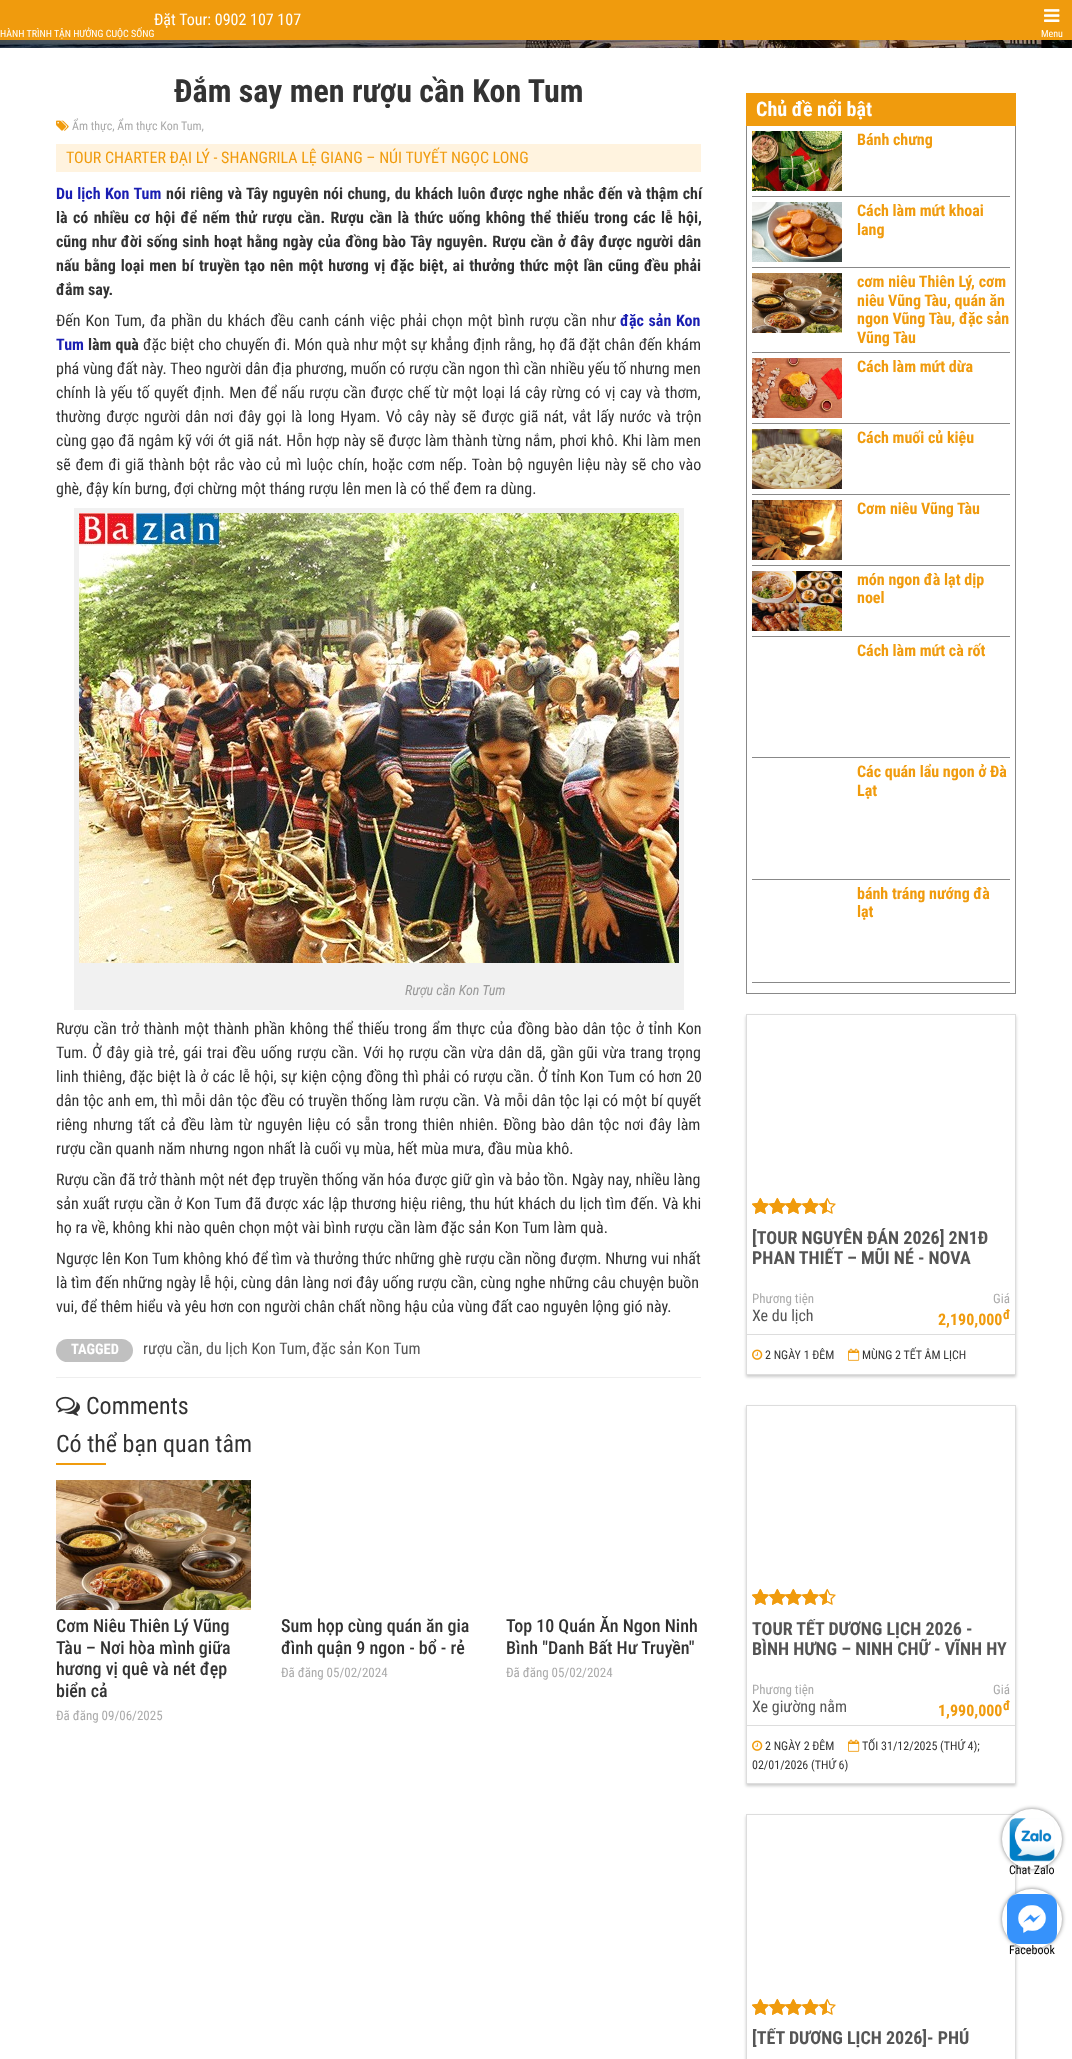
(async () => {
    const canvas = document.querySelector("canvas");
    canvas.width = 1072;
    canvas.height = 2059;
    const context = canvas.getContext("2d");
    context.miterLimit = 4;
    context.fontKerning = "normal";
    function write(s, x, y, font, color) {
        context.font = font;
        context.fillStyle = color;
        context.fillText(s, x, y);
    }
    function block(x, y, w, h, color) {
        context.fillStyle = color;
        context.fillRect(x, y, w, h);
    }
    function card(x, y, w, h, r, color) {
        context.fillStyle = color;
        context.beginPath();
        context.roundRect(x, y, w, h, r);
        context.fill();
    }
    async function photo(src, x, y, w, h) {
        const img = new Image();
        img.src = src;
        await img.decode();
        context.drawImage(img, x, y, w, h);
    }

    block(0, 0, 1072, 2059, "rgb(255, 255, 255)");
    block(0, 0, 1072, 40, "rgb(240, 155, 13)");
    write("Đặt Tour: 0902 107 107", 154, 25, "16px Roboto Condensed", "rgb(255, 255, 255)");
    write("HÀNH TRÌNH TẬN HƯỞNG CUỘC SỐNG", 0, 37, "10px Roboto Condensed", "rgb(255, 255, 255)");
    await photo("media/1.png", 1044, 9, 16, 13);
    write("Menu", 1041, 37, "10px Roboto Condensed", "rgb(255, 255, 255)");
    await photo("media/2.png", 0, 40, 1072, 8);
    block(56, 1377, 645, 1, "rgb(238, 238, 238)");
    write("Đắm say men rượu cần Kon Tum", 174, 102, "bold 32px Roboto Condensed", "rgb(51, 51, 51)");
    await photo("media/3.png", 56, 120, 13, 11);
    write("Ẩm thực, Ẩm thực Kon Tum,", 72, 130, "12px Roboto Condensed", "rgb(170, 170, 170)");
    block(56, 144, 645, 28, "rgb(255, 243, 223)");
    write("TOUR CHARTER ĐẠI LÝ - SHANGRILA LỆ GIANG – NÚI TUYẾT NGỌC LONG", 66, 163, "16px Roboto Condensed", "rgb(240, 155, 13)");
    context.wordSpacing = "0.7px";
    write("Du lịch Kon Tum", 56, 199, "bold 16px Roboto Condensed", "rgb(26, 30, 178)");
    write("nói riêng và Tây nguyên nói chung, du khách luôn được nghe nhắc đến và thậm chí", 166, 199, "bold 16px Roboto Condensed", "rgb(51, 51, 51)");
    context.wordSpacing = "1.7px";
    write("là có nhiều cơ hội để nếm thử rượu cần. Rượu cần là thức uống không thể thiếu trong các lễ hội,", 56, 223, "bold 16px Roboto Condensed", "rgb(51, 51, 51)");
    context.wordSpacing = "0.9px";
    write("cũng như đời sống sinh hoạt hằng ngày của đồng bào Tây nguyên. Rượu cần ở đây được người dân", 56, 247, "bold 16px Roboto Condensed", "rgb(51, 51, 51)");
    context.wordSpacing = "1.35px";
    write("nấu bằng loại men bí truyền tạo nên một hương vị đặc biệt, ai thưởng thức một lần cũng đều phải", 56, 271, "bold 16px Roboto Condensed", "rgb(51, 51, 51)");
    context.wordSpacing = "0px";
    write("đắm say.", 56, 295, "bold 16px Roboto Condensed", "rgb(51, 51, 51)");
    context.wordSpacing = "1.25px";
    write("Đến Kon Tum, đa phần du khách đều canh cánh việc phải chọn một bình rượu cần như", 56, 326, "16px Roboto Condensed", "rgb(51, 51, 51)");
    context.wordSpacing = "1px";
    write("đặc sản Kon", 620, 326, "bold 16px Roboto Condensed", "rgb(26, 30, 178)");
    context.wordSpacing = "0px";
    write("Tum", 56, 350, "bold 16px Roboto Condensed", "rgb(26, 30, 178)");
    context.wordSpacing = "0.3px";
    write("làm quà", 88, 350, "bold 16px Roboto Condensed", "rgb(51, 51, 51)");
    write("đặc biệt cho chuyến đi. Món quà như một sự khẳng định rằng, họ đã đặt chân đến khám", 143, 350, "16px Roboto Condensed", "rgb(51, 51, 51)");
    context.wordSpacing = "0px";
    write("phá vùng đất này. Theo người dân địa phương, muốn có rượu cần ngon thì cần nhiều yếu tố nhưng men", 56, 374, "16px Roboto Condensed", "rgb(51, 51, 51)");
    context.wordSpacing = "0.8px";
    write("chính là yếu tố quyết định. Men để nấu rượu cần được chế từ một loại lá cây rừng có vị cay và thơm,", 56, 398, "16px Roboto Condensed", "rgb(51, 51, 51)");
    context.wordSpacing = "1.5px";
    write("thường được người dân nơi đây gọi là long Hyam. Vỏ cây này sẽ được giã nát, vắt lấy nước và trộn", 56, 422, "16px Roboto Condensed", "rgb(51, 51, 51)");
    context.wordSpacing = "0.3px";
    write("cùng gạo đã ngâm kỹ với ớt giã nát. Hỗn hợp này sẽ được làm thành từng nắm, phơi khô. Khi làm men", 56, 446, "16px Roboto Condensed", "rgb(51, 51, 51)");
    context.wordSpacing = "1px";
    write("sẽ đem đi giã thành bột rắc vào củ mì luộc chín, hoặc cơm nếp. Toàn bộ nguyên liệu này sẽ cho vào", 56, 470, "16px Roboto Condensed", "rgb(51, 51, 51)");
    context.wordSpacing = "0px";
    write("ghè, đậy kín bưng, đợi chừng một tháng rượu lên men là có thể đem ra dùng.", 56, 494, "16px Roboto Condensed", "rgb(51, 51, 51)");
    block(74, 508, 610, 502, "rgb(241, 241, 241)");
    await photo("media/4.png", 79, 513, 600, 450);
    write("Rượu cần Kon Tum", 405, 995, "italic 14px Roboto Condensed", "rgb(153, 153, 153)");
    context.wordSpacing = "1.1px";
    write("Rượu cần trở thành một thành phần không thể thiếu trong ẩm thực của đồng bào dân tộc ở tỉnh Kon", 56, 1034, "16px Roboto Condensed", "rgb(51, 51, 51)");
    write("Tum. Ở đây già trẻ, gái trai đều uống rượu cần. Với họ rượu cần vừa dân dã, gần gũi vừa trang trọng", 56, 1058, "16px Roboto Condensed", "rgb(51, 51, 51)");
    context.wordSpacing = "0.4px";
    write("linh thiêng, đặc biệt là ở các lễ hội, sự kiện cộng đồng thì phải có rượu cần. Ở tỉnh Kon Tum có hơn 20", 56, 1082, "16px Roboto Condensed", "rgb(51, 51, 51)");
    write("dân tộc anh em, thì mỗi dân tộc đều có truyền thống làm rượu cần. Và mỗi dân tộc lại có một bí quyết", 56, 1106, "16px Roboto Condensed", "rgb(51, 51, 51)");
    context.wordSpacing = "1.6px";
    write("riêng nhưng tất cả đều làm từ nguyên liệu có sẵn trong thiên nhiên. Đồng bào dân tộc nơi đây làm", 56, 1130, "16px Roboto Condensed", "rgb(51, 51, 51)");
    context.wordSpacing = "0px";
    write("rượu cần quanh năm nhưng ngon nhất là cuối vụ mùa, hết mùa mưa, đầu mùa khô.", 56, 1154, "16px Roboto Condensed", "rgb(51, 51, 51)");
    write("Rượu cần đã trở thành một nét đẹp truyền thống văn hóa được giữ gìn và bảo tồn. Ngày nay, nhiều làng", 56, 1185, "16px Roboto Condensed", "rgb(51, 51, 51)");
    context.wordSpacing = "0.3px";
    write("sản xuất rượu cần ở Kon Tum đã được xác lập thương hiệu riêng, thu hút khách du lịch tìm đến. Và khi", 56, 1209, "16px Roboto Condensed", "rgb(51, 51, 51)");
    context.wordSpacing = "0px";
    write("họ ra về, không khi nào quên chọn một vài bình rượu cần làm đặc sản Kon Tum làm quà.", 56, 1233, "16px Roboto Condensed", "rgb(51, 51, 51)");
    write("Ngược lên Kon Tum không khó để tìm và thưởng thức những ghè rượu cần nồng đượm. Nhưng vui nhất", 56, 1264, "16px Roboto Condensed", "rgb(51, 51, 51)");
    write("là tìm đến những ngày lễ hội, cùng dân làng nơi đây uống rượu cần, cùng nghe những câu chuyện buồn", 56, 1288, "16px Roboto Condensed", "rgb(51, 51, 51)");
    write("vui, để thêm hiểu và yêu hơn con người chân chất nồng hậu của vùng đất cao nguyên lộng gió này.", 56, 1312, "16px Roboto Condensed", "rgb(51, 51, 51)");
    card(56, 1339, 77, 23, 11.5, "rgb(192, 192, 192)");
    write("TAGGED", 71, 1354, "bold 14.5px Roboto Condensed", "rgb(255, 255, 255)");
    write("rượu cần,", 143, 1354, "16px Roboto Condensed", "rgb(85, 85, 85)");
    write("du lịch Kon Tum,", 206, 1354, "16px Roboto Condensed", "rgb(85, 85, 85)");
    write("đặc sản Kon Tum", 312, 1354, "16px Roboto Condensed", "rgb(85, 85, 85)");
    await photo("media/5.png", 56, 1396, 24, 20);
    write("Comments", 86, 1414, "24px Roboto Condensed", "rgb(51, 51, 51)");
    write("Có thể bạn quan tâm", 56, 1452, "24px Roboto Condensed", "rgb(51, 51, 51)");
    block(56, 1463, 50, 2, "rgb(240, 155, 13)");
    await photo("media/6.png", 56, 1480, 195, 130);
    write("Cơm Niêu Thiên Lý Vũng", 56, 1632, "500 18px Roboto Condensed", "rgb(51, 51, 51)");
    write("Tàu – Nơi hòa mình giữa", 56, 1654, "500 18px Roboto Condensed", "rgb(51, 51, 51)");
    write("hương vị quê và nét đẹp", 56, 1675, "500 18px Roboto Condensed", "rgb(51, 51, 51)");
    write("biển cả", 56, 1697, "500 18px Roboto Condensed", "rgb(51, 51, 51)");
    write("Đã đăng 09/06/2025", 56, 1720, "13px Roboto Condensed", "rgb(170, 170, 170)");
    write("Sum họp cùng quán ăn gia", 281, 1632, "500 18px Roboto Condensed", "rgb(51, 51, 51)");
    write("đình quận 9 ngon - bổ - rẻ", 281, 1654, "500 18px Roboto Condensed", "rgb(51, 51, 51)");
    write("Đã đăng 05/02/2024", 281, 1677, "13px Roboto Condensed", "rgb(170, 170, 170)");
    write("Top 10 Quán Ăn Ngon Ninh", 506, 1632, "500 18px Roboto Condensed", "rgb(51, 51, 51)");
    write("Bình \"Danh Bất Hư Truyền\"", 506, 1654, "500 18px Roboto Condensed", "rgb(51, 51, 51)");
    write("Đã đăng 05/02/2024", 506, 1677, "13px Roboto Condensed", "rgb(170, 170, 170)");
    block(746, 93, 270, 33, "rgb(240, 155, 13)");
    write("Chủ đề nổi bật", 756, 116, "bold 20px Roboto Condensed", "rgb(255, 255, 255)");
    block(1015, 126, 1, 868, "rgb(136, 136, 136)");
    block(746, 993, 270, 1, "rgb(136, 136, 136)");
    block(746, 126, 1, 868, "rgb(136, 136, 136)");
    block(752, 196, 258, 1, "rgb(136, 136, 136)");
    await photo("media/7.png", 752, 131, 90, 60);
    write("Bánh chưng", 857, 145, "bold 16px Roboto Condensed", "rgb(240, 155, 13)");
    block(752, 267, 258, 1, "rgb(136, 136, 136)");
    await photo("media/8.png", 752, 202, 90, 60);
    write("Cách làm mứt khoai", 857, 216, "bold 16px Roboto Condensed", "rgb(240, 155, 13)");
    write("lang", 857, 235, "bold 16px Roboto Condensed", "rgb(240, 155, 13)");
    block(752, 352, 258, 1, "rgb(136, 136, 136)");
    await photo("media/9.png", 752, 273, 90, 60);
    write("cơm niêu Thiên Lý, cơm", 857, 287, "bold 16px Roboto Condensed", "rgb(240, 155, 13)");
    write("niêu Vũng Tàu, quán ăn", 857, 306, "bold 16px Roboto Condensed", "rgb(240, 155, 13)");
    write("ngon Vũng Tàu, đặc sản", 857, 324, "bold 16px Roboto Condensed", "rgb(240, 155, 13)");
    write("Vũng Tàu", 857, 343, "bold 16px Roboto Condensed", "rgb(240, 155, 13)");
    block(752, 423, 258, 1, "rgb(136, 136, 136)");
    await photo("media/10.png", 752, 358, 90, 60);
    write("Cách làm mứt dừa", 857, 372, "bold 16px Roboto Condensed", "rgb(240, 155, 13)");
    block(752, 494, 258, 1, "rgb(136, 136, 136)");
    await photo("media/11.png", 752, 429, 90, 60);
    write("Cách muối củ kiệu", 857, 443, "bold 16px Roboto Condensed", "rgb(240, 155, 13)");
    block(752, 565, 258, 1, "rgb(136, 136, 136)");
    await photo("media/12.png", 752, 500, 90, 60);
    write("Cơm niêu Vũng Tàu", 857, 514, "bold 16px Roboto Condensed", "rgb(240, 155, 13)");
    block(752, 636, 258, 1, "rgb(136, 136, 136)");
    await photo("media/13.png", 752, 571, 90, 60);
    write("món ngon đà lạt dịp", 857, 585, "bold 16px Roboto Condensed", "rgb(240, 155, 13)");
    write("noel", 857, 603, "bold 16px Roboto Condensed", "rgb(240, 155, 13)");
    block(752, 757, 258, 1, "rgb(136, 136, 136)");
    write("Cách làm mứt cà rốt", 857, 656, "bold 16px Roboto Condensed", "rgb(240, 155, 13)");
    block(752, 879, 258, 1, "rgb(136, 136, 136)");
    write("Các quán lẩu ngon ở Đà", 857, 777, "bold 16px Roboto Condensed", "rgb(240, 155, 13)");
    write("Lạt", 857, 796, "bold 16px Roboto Condensed", "rgb(240, 155, 13)");
    block(752, 982, 258, 1, "rgb(136, 136, 136)");
    write("bánh tráng nướng đà", 857, 899, "bold 16px Roboto Condensed", "rgb(240, 155, 13)");
    write("lạt", 857, 917, "bold 16px Roboto Condensed", "rgb(240, 155, 13)");
    context.save();
    context.beginPath();
    context.moveTo(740, 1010);
    context.lineTo(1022, 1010);
    context.lineTo(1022, 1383);
    context.lineTo(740, 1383);
    context.closePath();
    context.moveTo(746, 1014);
    context.lineTo(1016, 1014);
    context.lineTo(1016, 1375);
    context.lineTo(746, 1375);
    context.closePath();
    context.clip("evenodd");
    context.fillStyle = "rgba(0, 0, 0, 0.2)";
    context.filter = "blur(1.5px)";
    context.beginPath();
    context.rect(746, 1016, 270, 361);
    context.fill();
    context.filter = "none";
    context.restore();
    context.strokeStyle = "rgb(221, 221, 221)";
    context.strokeRect(746.5, 1014.5, 269, 360);
    await photo("media/14.png", 752, 1197, 17, 17);
    await photo("media/14.png", 769, 1197, 17, 17);
    await photo("media/15.png", 785, 1197, 17, 17);
    await photo("media/14.png", 802, 1197, 17, 17);
    await photo("media/14.png", 819, 1197, 17, 17);
    await photo("media/16.png", 752, 1198, 17, 16);
    await photo("media/17.png", 769, 1198, 17, 16);
    await photo("media/18.png", 785, 1198, 17, 16);
    await photo("media/16.png", 802, 1198, 17, 16);
    await photo("media/19.png", 819, 1198, 8, 16);
    context.save();
    context.beginPath();
    context.rect(752, 1228, 258, 44);
    context.clip();
    write("[TOUR NGUYÊN ĐÁN 2026] 2N1Đ", 752, 1244, "bold 18px Roboto Condensed", "rgb(85, 85, 85)");
    context.restore();
    write("PHAN THIẾT – MŨI NÉ - NOVA", 752, 1264, "bold 18px Roboto Condensed", "rgb(85, 85, 85)");
    write("Phương tiện", 752, 1303, "13px Roboto Condensed", "rgb(170, 170, 170)");
    write("Xe du lịch", 752, 1321, "16px Roboto Condensed", "rgb(85, 85, 85)");
    write("Giá", 993, 1303, "13px Roboto Condensed", "rgb(170, 170, 170)");
    write("2,190,000", 938, 1325, "bold 16px Roboto Condensed", "rgb(240, 155, 13)");
    write("đ", 1003, 1319, "bold 13px Roboto Condensed", "rgb(240, 155, 13)");
    block(747, 1334, 268, 1, "rgb(221, 221, 221)");
    await photo("media/20.png", 752, 1349, 11, 11);
    write("2 NGÀY 1 ĐÊM", 765, 1359, "12px Roboto Condensed", "rgb(51, 51, 51)");
    await photo("media/21.png", 848, 1348, 12, 13);
    write("MÙNG 2 TẾT ÂM LỊCH", 862, 1359, "12px Roboto Condensed", "rgb(51, 51, 51)");
    context.save();
    context.beginPath();
    context.moveTo(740, 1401);
    context.lineTo(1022, 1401);
    context.lineTo(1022, 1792);
    context.lineTo(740, 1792);
    context.closePath();
    context.moveTo(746, 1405);
    context.lineTo(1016, 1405);
    context.lineTo(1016, 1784);
    context.lineTo(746, 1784);
    context.closePath();
    context.clip("evenodd");
    context.fillStyle = "rgba(0, 0, 0, 0.2)";
    context.filter = "blur(1.5px)";
    context.beginPath();
    context.rect(746, 1407, 270, 379);
    context.fill();
    context.filter = "none";
    context.restore();
    context.strokeRect(746.5, 1405.5, 269, 378);
    await photo("media/14.png", 752, 1588, 17, 17);
    await photo("media/14.png", 769, 1588, 17, 17);
    await photo("media/15.png", 785, 1588, 17, 17);
    await photo("media/14.png", 802, 1588, 17, 17);
    await photo("media/14.png", 819, 1588, 17, 17);
    await photo("media/16.png", 752, 1589, 17, 16);
    await photo("media/17.png", 769, 1589, 17, 16);
    await photo("media/18.png", 785, 1589, 17, 16);
    await photo("media/16.png", 802, 1589, 17, 16);
    await photo("media/19.png", 819, 1589, 8, 16);
    context.save();
    context.beginPath();
    context.rect(752, 1619, 258, 44);
    context.clip();
    write("TOUR TẾT DƯƠNG LỊCH 2026 -", 752, 1635, "bold 18px Roboto Condensed", "rgb(85, 85, 85)");
    context.restore();
    write("BÌNH HƯNG – NINH CHỮ - VĨNH HY", 752, 1655, "bold 18px Roboto Condensed", "rgb(85, 85, 85)");
    write("Phương tiện", 752, 1694, "13px Roboto Condensed", "rgb(170, 170, 170)");
    write("Xe giường nằm", 752, 1712, "16px Roboto Condensed", "rgb(85, 85, 85)");
    write("Giá", 993, 1694, "13px Roboto Condensed", "rgb(170, 170, 170)");
    write("1,990,000", 938, 1716, "bold 16px Roboto Condensed", "rgb(240, 155, 13)");
    write("đ", 1003, 1710, "bold 13px Roboto Condensed", "rgb(240, 155, 13)");
    block(747, 1725, 268, 1, "rgb(221, 221, 221)");
    await photo("media/21.png", 848, 1739, 12, 13);
    write("TỐI 31/12/2025 (THỨ 4);", 862, 1750, "12px Roboto Condensed", "rgb(51, 51, 51)");
    write("02/01/2026 (THỨ 6)", 752, 1769, "12px Roboto Condensed", "rgb(51, 51, 51)");
    await photo("media/20.png", 752, 1740, 11, 11);
    write("2 NGÀY 2 ĐÊM", 765, 1750, "12px Roboto Condensed", "rgb(51, 51, 51)");
    context.save();
    context.beginPath();
    context.moveTo(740, 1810);
    context.lineTo(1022, 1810);
    context.lineTo(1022, 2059);
    context.lineTo(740, 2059);
    context.closePath();
    context.moveTo(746, 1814);
    context.lineTo(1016, 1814);
    context.lineTo(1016, 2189);
    context.lineTo(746, 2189);
    context.closePath();
    context.clip("evenodd");
    context.fillStyle = "rgba(0, 0, 0, 0.2)";
    context.filter = "blur(1.5px)";
    context.beginPath();
    context.rect(746, 1816, 270, 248);
    context.fill();
    context.filter = "none";
    context.restore();
    context.strokeRect(746.5, 1814.5, 269, 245);
    await photo("media/14.png", 752, 1998, 17, 17);
    await photo("media/14.png", 769, 1998, 17, 17);
    await photo("media/15.png", 785, 1998, 17, 17);
    await photo("media/14.png", 802, 1998, 17, 17);
    await photo("media/14.png", 819, 1998, 17, 17);
    await photo("media/16.png", 752, 1999, 17, 16);
    await photo("media/17.png", 769, 1999, 17, 16);
    await photo("media/18.png", 785, 1999, 17, 16);
    await photo("media/16.png", 802, 1999, 17, 16);
    await photo("media/19.png", 819, 1999, 8, 16);
    context.save();
    context.beginPath();
    context.rect(752, 2028, 258, 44);
    context.clip();
    write("[TẾT DƯƠNG LỊCH 2026]- PHÚ", 752, 2044, "bold 18px Roboto Condensed", "rgb(85, 85, 85)");
    context.restore();
    context.fillStyle = "rgba(0, 0, 0, 0.5)";
    context.filter = "blur(2px)";
    context.beginPath();
    context.roundRect(1002, 1809, 60, 60, 30);
    context.fill();
    context.filter = "none";
    context.fillStyle = "rgb(255, 255, 255)";
    context.beginPath();
    context.arc(1032, 1839, 30, 0, Math.PI * 2);
    context.fill();
    await photo("media/22.png", 1009, 1818, 46, 44);
    write("Chat Zalo", 1009, 1874, "12px Roboto Condensed", "rgb(0, 0, 0)");
    context.fillStyle = "rgba(0, 0, 0, 0.5)";
    context.filter = "blur(2px)";
    context.beginPath();
    context.roundRect(1002, 1889, 60, 60, 30);
    context.fill();
    context.filter = "none";
    context.fillStyle = "rgb(255, 255, 255)";
    context.beginPath();
    context.arc(1032, 1919, 30, 0, Math.PI * 2);
    context.fill();
    await photo("media/23.png", 1007, 1894, 50, 50);
    write("Facebook", 1009, 1954, "12px Roboto Condensed", "rgb(0, 0, 0)");
})();
